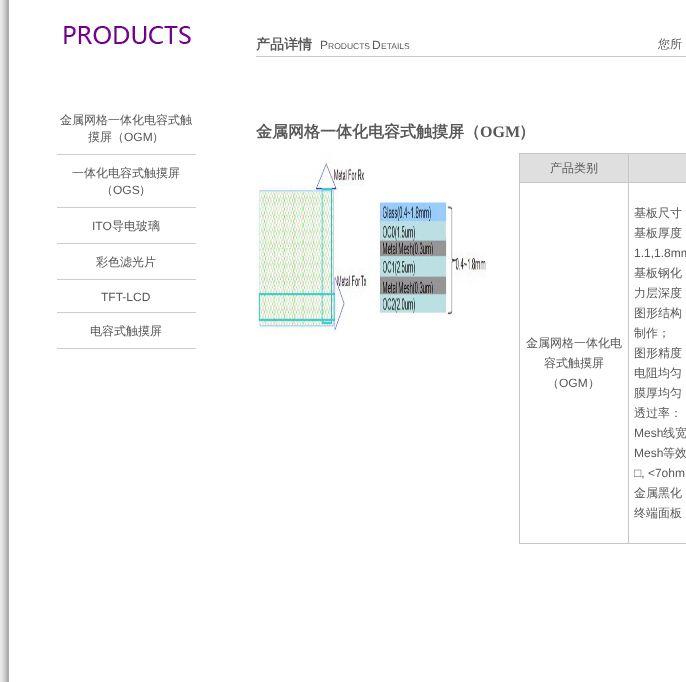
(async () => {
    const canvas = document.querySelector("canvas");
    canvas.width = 686;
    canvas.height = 682;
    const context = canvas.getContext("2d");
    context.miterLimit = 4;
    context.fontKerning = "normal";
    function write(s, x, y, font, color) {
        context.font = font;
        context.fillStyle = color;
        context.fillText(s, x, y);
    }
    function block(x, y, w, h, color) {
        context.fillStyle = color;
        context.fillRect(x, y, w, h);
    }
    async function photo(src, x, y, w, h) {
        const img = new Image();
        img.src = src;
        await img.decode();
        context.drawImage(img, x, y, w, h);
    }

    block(0, 0, 686, 682, "rgb(255, 255, 255)");
    await photo("media/1.png", 0, 0, 686, 682);
    await photo("media/2.png", 64, 26, 127, 18);
    block(57, 154, 139, 1, "rgb(205, 205, 205)");
    write("金属网格一体化电容式触", 60, 124, "500 12px WenQuanYi Zen Hei", "rgb(89, 87, 87)");
    write("摸屏（", 88, 141, "500 12px WenQuanYi Zen Hei", "rgb(89, 87, 87)");
    write("OGM", 124, 141, "12px Liberation Sans", "rgb(89, 87, 87)");
    write("）", 152, 141, "500 12px WenQuanYi Zen Hei", "rgb(89, 87, 87)");
    block(57, 207, 139, 1, "rgb(205, 205, 205)");
    write("一体化电容式触摸屏", 72, 177, "500 12px WenQuanYi Zen Hei", "rgb(89, 87, 87)");
    write("（", 101, 194, "500 12px WenQuanYi Zen Hei", "rgb(89, 87, 87)");
    write("OGS", 113, 194, "12px Liberation Sans", "rgb(89, 87, 87)");
    write("）", 139, 194, "500 12px WenQuanYi Zen Hei", "rgb(89, 87, 87)");
    block(57, 243, 139, 1, "rgb(205, 205, 205)");
    write("ITO", 92, 230, "12px Liberation Sans", "rgb(89, 87, 87)");
    write("导电玻璃", 112, 230, "500 12px WenQuanYi Zen Hei", "rgb(89, 87, 87)");
    block(57, 279, 139, 1, "rgb(205, 205, 205)");
    write("彩色滤光片", 96, 266, "500 12px WenQuanYi Zen Hei", "rgb(89, 87, 87)");
    block(57, 312, 139, 1, "rgb(205, 205, 205)");
    write("TFT-LCD", 101, 301, "12px Liberation Sans", "rgb(89, 87, 87)");
    block(57, 348, 139, 1, "rgb(205, 205, 205)");
    write("电容式触摸屏", 90, 335, "500 12px WenQuanYi Zen Hei", "rgb(89, 87, 87)");
    block(256, 56, 430, 1, "rgb(200, 200, 200)");
    write("产品详情", 256, 49, "bold 14px WenQuanYi Zen Hei", "rgb(89, 87, 87)");
    write("P", 320, 49, "12px Liberation Sans", "rgb(89, 87, 87)");
    write("RODUCTS", 328, 49, "8.5px Liberation Sans", "rgb(89, 87, 87)");
    write("D", 372, 49, "12px Liberation Sans", "rgb(89, 87, 87)");
    write("ETAILS", 381, 49, "8.5px Liberation Sans", "rgb(89, 87, 87)");
    write("您所", 658, 48, "500 12px WenQuanYi Zen Hei", "rgb(89, 87, 87)");
    write("金属网格一体化电容式触摸屏（", 256, 137, "bold 16px WenQuanYi Zen Hei", "rgb(89, 87, 87)");
    write("OGM", 480, 137, "bold 16px Liberation Serif", "rgb(89, 87, 87)");
    write("）", 519, 137, "bold 16px WenQuanYi Zen Hei", "rgb(89, 87, 87)");
    await photo("media/3.png", 256, 153, 230, 182);
    block(520, 154, 108, 28, "rgb(223, 223, 223)");
    block(628, 153, 58, 1, "rgb(198, 198, 198)");
    block(628, 182, 58, 1, "rgb(198, 198, 198)");
    block(628, 543, 58, 1, "rgb(198, 198, 198)");
    block(628, 182, 1, 362, "rgb(198, 198, 198)");
    block(519, 182, 110, 1, "rgb(198, 198, 198)");
    block(628, 153, 1, 30, "rgb(198, 198, 198)");
    block(519, 153, 110, 1, "rgb(198, 198, 198)");
    block(519, 543, 110, 1, "rgb(198, 198, 198)");
    block(519, 182, 1, 362, "rgb(198, 198, 198)");
    block(519, 153, 1, 30, "rgb(198, 198, 198)");
    write("产品类别", 550, 172, "500 12px WenQuanYi Zen Hei", "rgb(89, 87, 87)");
    block(629, 154, 57, 28, "rgb(223, 223, 223)");
    write("金属网格一体化电", 526, 347, "500 12px WenQuanYi Zen Hei", "rgb(89, 87, 87)");
    write("容式触摸屏", 544, 367, "500 12px WenQuanYi Zen Hei", "rgb(89, 87, 87)");
    write("（", 547, 387, "500 12px WenQuanYi Zen Hei", "rgb(89, 87, 87)");
    write("OGM", 559, 387, "12px Liberation Sans", "rgb(89, 87, 87)");
    write("）", 588, 387, "500 12px WenQuanYi Zen Hei", "rgb(89, 87, 87)");
    write("基板尺寸", 634, 217, "500 12px WenQuanYi Zen Hei", "rgb(89, 87, 87)");
    write("基板厚度", 634, 237, "500 12px WenQuanYi Zen Hei", "rgb(89, 87, 87)");
    write("1.1,1.8mm", 634, 257, "12px Liberation Sans", "rgb(89, 87, 87)");
    write("基板钢化", 634, 277, "500 12px WenQuanYi Zen Hei", "rgb(89, 87, 87)");
    write("力层深度", 634, 297, "500 12px WenQuanYi Zen Hei", "rgb(89, 87, 87)");
    write("图形结构", 634, 317, "500 12px WenQuanYi Zen Hei", "rgb(89, 87, 87)");
    write("制作；", 634, 337, "500 12px WenQuanYi Zen Hei", "rgb(89, 87, 87)");
    write("图形精度", 634, 357, "500 12px WenQuanYi Zen Hei", "rgb(89, 87, 87)");
    write("电阻均匀", 634, 377, "500 12px WenQuanYi Zen Hei", "rgb(89, 87, 87)");
    write("膜厚均匀", 634, 397, "500 12px WenQuanYi Zen Hei", "rgb(89, 87, 87)");
    write("透过率：", 634, 417, "500 12px WenQuanYi Zen Hei", "rgb(89, 87, 87)");
    write("Mesh", 634, 437, "12px Liberation Sans", "rgb(89, 87, 87)");
    write("线宽", 663, 437, "500 12px WenQuanYi Zen Hei", "rgb(89, 87, 87)");
    write("Mesh", 634, 457, "12px Liberation Sans", "rgb(89, 87, 87)");
    write("等效", 663, 457, "500 12px WenQuanYi Zen Hei", "rgb(89, 87, 87)");
    write("□, <7ohm", 634, 477, "12px Liberation Sans", "rgb(89, 87, 87)");
    write("金属黑化", 634, 497, "500 12px WenQuanYi Zen Hei", "rgb(89, 87, 87)");
    write("终端面板", 634, 517, "500 12px WenQuanYi Zen Hei", "rgb(89, 87, 87)");
})();
